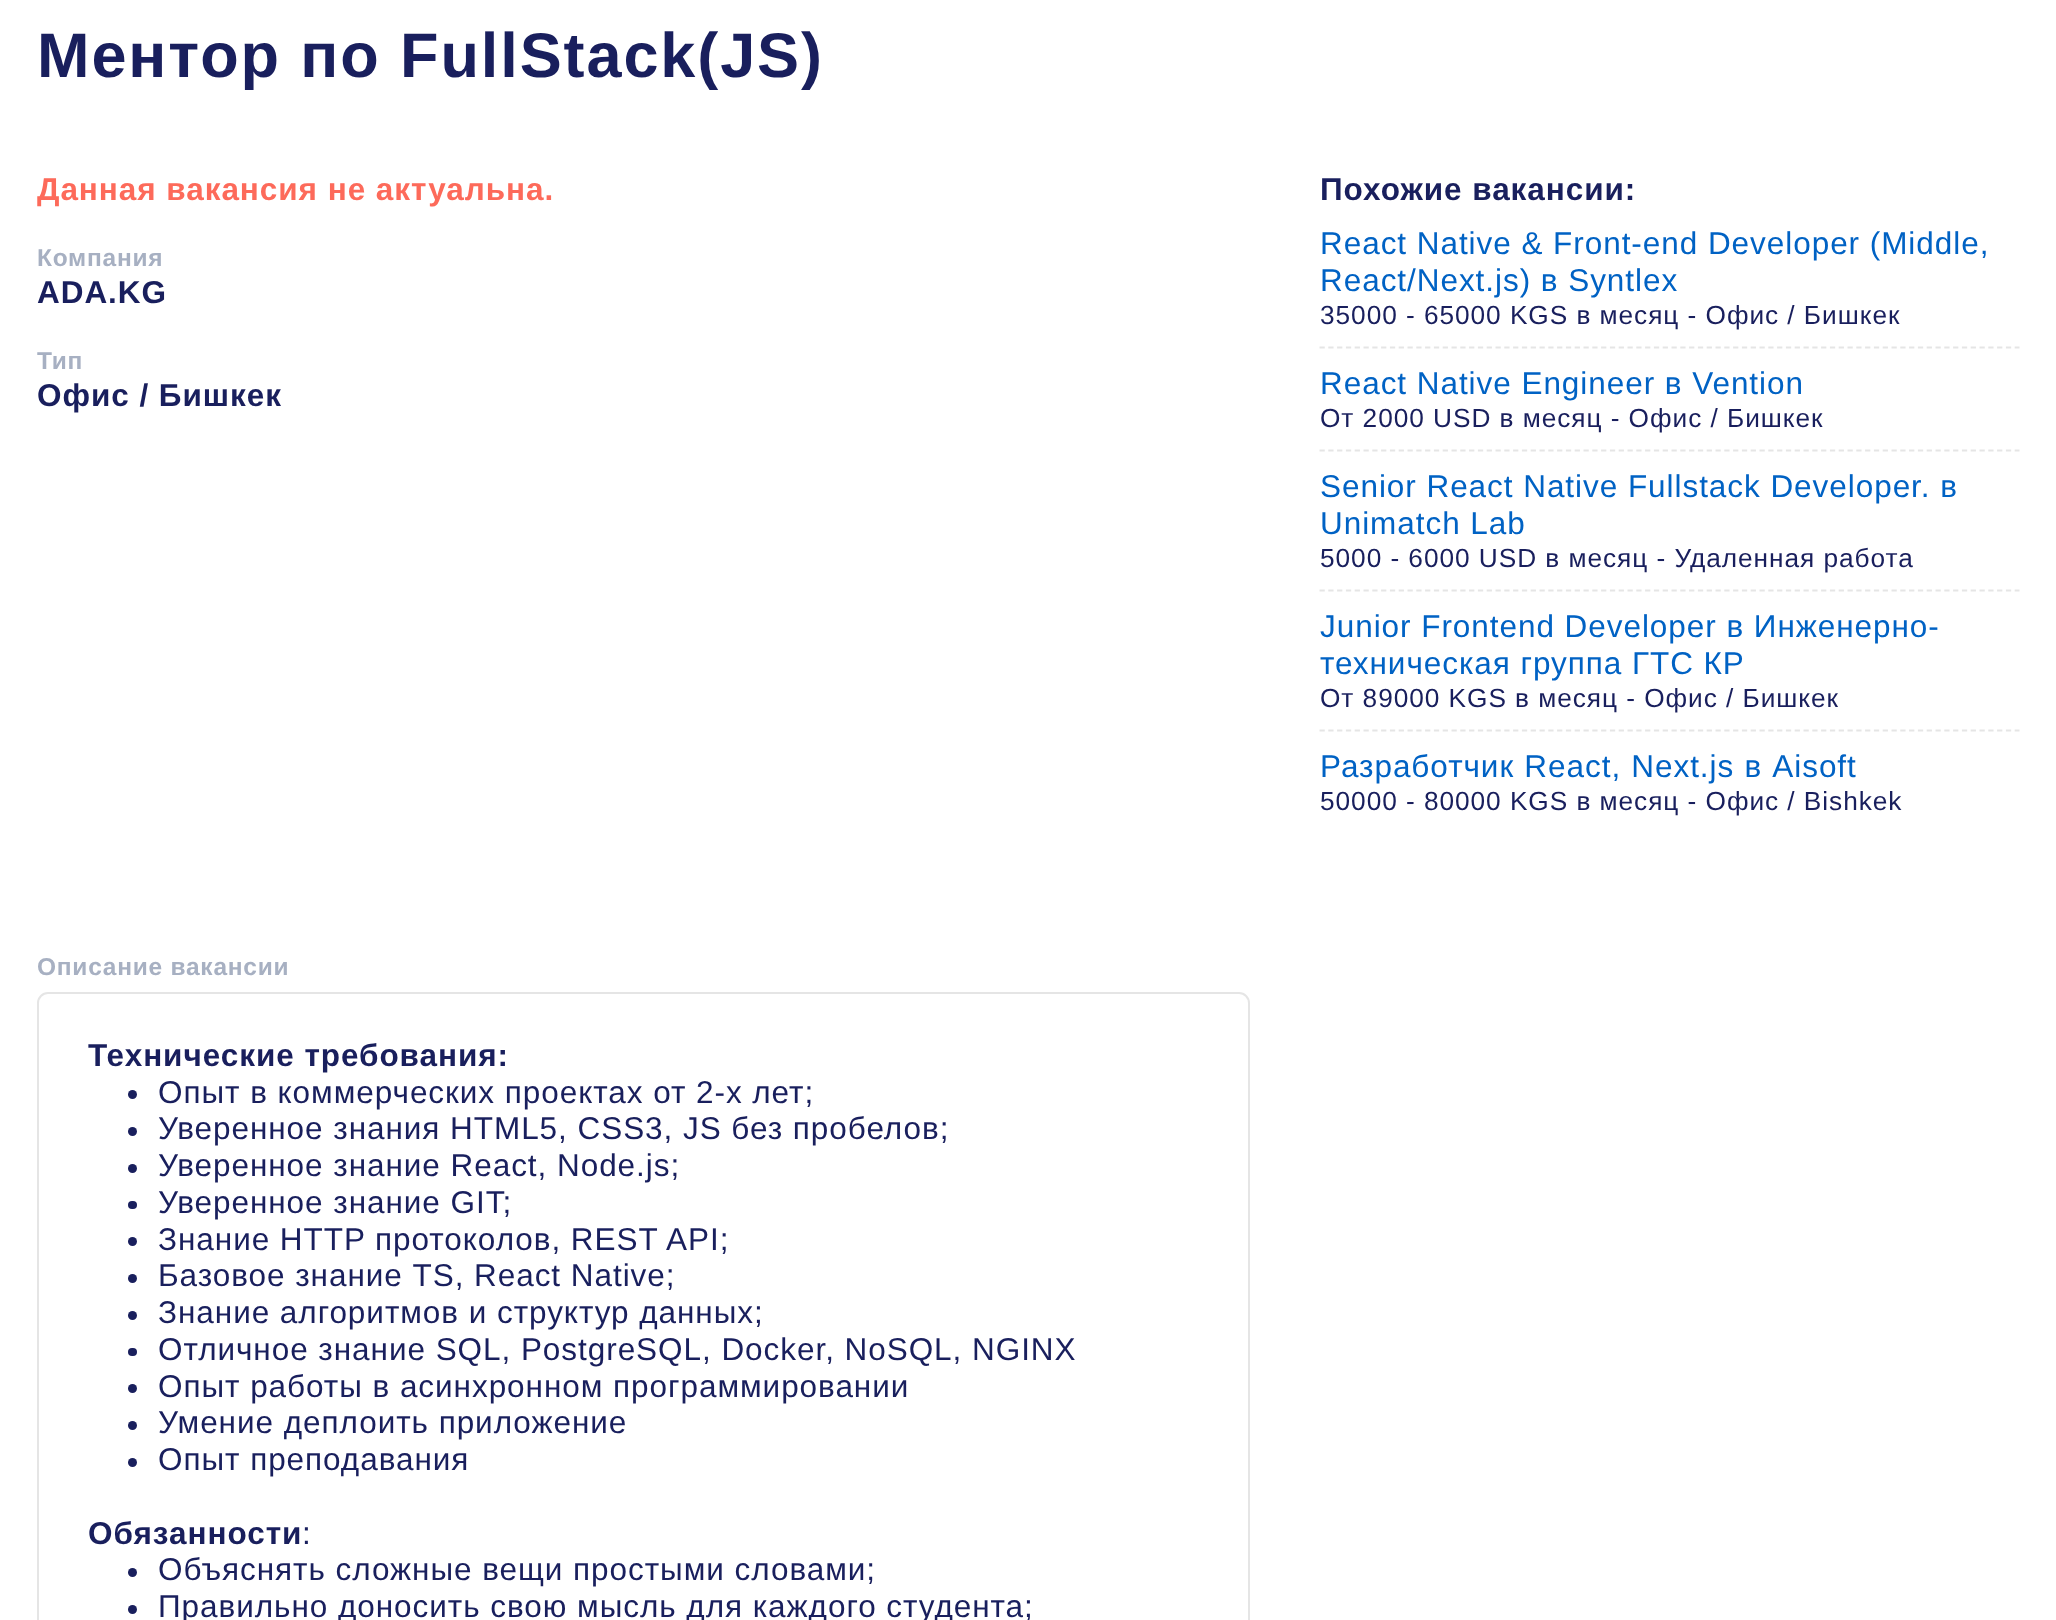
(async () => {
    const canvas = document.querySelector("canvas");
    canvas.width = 2056;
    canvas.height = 1620;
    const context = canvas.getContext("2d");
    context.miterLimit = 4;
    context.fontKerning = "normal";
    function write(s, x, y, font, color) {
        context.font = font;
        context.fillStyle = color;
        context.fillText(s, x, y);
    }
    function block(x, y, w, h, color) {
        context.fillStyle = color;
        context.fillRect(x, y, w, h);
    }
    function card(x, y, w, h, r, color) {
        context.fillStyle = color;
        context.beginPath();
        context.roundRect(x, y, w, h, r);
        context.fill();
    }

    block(0, 0, 2056, 1620, "rgb(255, 255, 255)");
    context.letterSpacing = "1.9px";
    write("Ментор по FullStack(JS)", 37, 77, "bold 63px Liberation Sans", "rgb(25, 31, 93)");
    context.letterSpacing = "0.95px";
    write("Данная вакансия не актуальна.", 37, 200, "bold 31.5px Liberation Sans", "rgb(253, 106, 90)");
    context.letterSpacing = "0.75px";
    write("Компания", 37, 266, "bold 24.5px Liberation Sans", "rgb(167, 176, 194)");
    context.letterSpacing = "0.95px";
    write("ADA.KG", 37, 303, "bold 31.5px Liberation Sans", "rgb(25, 31, 93)");
    context.letterSpacing = "0.75px";
    write("Тип", 37, 369, "bold 24.5px Liberation Sans", "rgb(167, 176, 194)");
    context.letterSpacing = "0.95px";
    write("Офис / Бишкек", 37, 406, "bold 31.5px Liberation Sans", "rgb(25, 31, 93)");
    context.letterSpacing = "0.75px";
    write("Описание вакансии", 37, 975, "bold 24.5px Liberation Sans", "rgb(167, 176, 194)");
    context.beginPath();
    context.roundRect(38, 993, 1211, 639, 10);
    context.strokeStyle = "rgb(229, 229, 229)";
    context.lineWidth = 2;
    context.stroke();
    context.letterSpacing = "0.95px";
    write("Технические требования:", 88, 1066, "bold 31.5px Liberation Sans", "rgb(25, 31, 93)");
    context.beginPath();
    context.arc(132.5, 1094.5, 4.5, 0, Math.PI * 2);
    context.fill();
    write("Опыт в коммерческих проектах от 2-х лет;", 158, 1103, "31.5px Liberation Sans", "rgb(25, 31, 93)");
    context.beginPath();
    context.arc(132.5, 1131.5, 4.5, 0, Math.PI * 2);
    context.fill();
    write("Уверенное знания HTML5, CSS3, JS без пробелов;", 158, 1139, "31.5px Liberation Sans", "rgb(25, 31, 93)");
    context.beginPath();
    context.arc(132.5, 1168.5, 4.5, 0, Math.PI * 2);
    context.fill();
    write("Уверенное знание React, Node.js;", 158, 1176, "31.5px Liberation Sans", "rgb(25, 31, 93)");
    card(128, 1201, 9, 8, 4, "rgb(25, 31, 93)");
    write("Уверенное знание GIT;", 158, 1213, "31.5px Liberation Sans", "rgb(25, 31, 93)");
    context.beginPath();
    context.arc(132.5, 1241.5, 4.5, 0, Math.PI * 2);
    context.fill();
    write("Знание HTTP протоколов, REST API;", 158, 1250, "31.5px Liberation Sans", "rgb(25, 31, 93)");
    context.beginPath();
    context.arc(132.5, 1278.5, 4.5, 0, Math.PI * 2);
    context.fill();
    write("Базовое знание TS, React Native;", 158, 1286, "31.5px Liberation Sans", "rgb(25, 31, 93)");
    context.beginPath();
    context.arc(132.5, 1315.5, 4.5, 0, Math.PI * 2);
    context.fill();
    write("Знание алгоритмов и структур данных;", 158, 1323, "31.5px Liberation Sans", "rgb(25, 31, 93)");
    card(128, 1348, 9, 8, 4, "rgb(25, 31, 93)");
    write("Отличное знание SQL, PostgreSQL, Docker, NoSQL, NGINX", 158, 1360, "31.5px Liberation Sans", "rgb(25, 31, 93)");
    context.beginPath();
    context.arc(132.5, 1388.5, 4.5, 0, Math.PI * 2);
    context.fill();
    write("Опыт работы в асинхронном программировании", 158, 1397, "31.5px Liberation Sans", "rgb(25, 31, 93)");
    context.beginPath();
    context.arc(132.5, 1425.5, 4.5, 0, Math.PI * 2);
    context.fill();
    write("Умение деплоить приложение", 158, 1433, "31.5px Liberation Sans", "rgb(25, 31, 93)");
    context.beginPath();
    context.arc(132.5, 1462.5, 4.5, 0, Math.PI * 2);
    context.fill();
    write("Опыт преподавания", 158, 1470, "31.5px Liberation Sans", "rgb(25, 31, 93)");
    write("Обязанности", 88, 1544, "bold 31.5px Liberation Sans", "rgb(25, 31, 93)");
    write(":", 302, 1544, "31.5px Liberation Sans", "rgb(25, 31, 93)");
    context.beginPath();
    context.arc(132.5, 1572.5, 4.5, 0, Math.PI * 2);
    context.fill();
    write("Объяснять сложные вещи простыми словами;", 158, 1580, "31.5px Liberation Sans", "rgb(25, 31, 93)");
    context.beginPath();
    context.arc(132.5, 1609.5, 4.5, 0, Math.PI * 2);
    context.fill();
    write("Правильно доносить свою мысль для каждого студента;", 158, 1617, "31.5px Liberation Sans", "rgb(25, 31, 93)");
    write("Похожие вакансии:", 1320, 200, "bold 31.5px Liberation Sans", "rgb(25, 31, 93)");
    context.beginPath();
    context.moveTo(1319.5, 347.5);
    context.lineTo(2019.5, 347.5);
    context.lineWidth = 1.8;
    context.setLineDash([5.25, 3.55]);
    context.stroke();
    write("React Native & Front-end Developer (Middle,", 1320, 254, "31.5px Liberation Sans", "rgb(0, 98, 196)");
    write("React/Next.js) в Syntlex", 1320, 291, "31.5px Liberation Sans", "rgb(0, 98, 196)");
    write("35000 - 65000 KGS в месяц - Офис / Бишкек", 1320, 324, "26.25px Liberation Sans", "rgb(25, 31, 93)");
    context.beginPath();
    context.moveTo(1319.5, 450.5);
    context.lineTo(2019.5, 450.5);
    context.stroke();
    write("React Native Engineer в Vention", 1320, 394, "31.5px Liberation Sans", "rgb(0, 98, 196)");
    write("От 2000 USD в месяц - Офис / Бишкек", 1320, 427, "26.25px Liberation Sans", "rgb(25, 31, 93)");
    context.beginPath();
    context.moveTo(1319.5, 590.5);
    context.lineTo(2019.5, 590.5);
    context.stroke();
    write("Senior React Native Fullstack Developer. в", 1320, 497, "31.5px Liberation Sans", "rgb(0, 98, 196)");
    write("Unimatch Lab", 1320, 534, "31.5px Liberation Sans", "rgb(0, 98, 196)");
    write("5000 - 6000 USD в месяц - Удаленная работа", 1320, 567, "26.25px Liberation Sans", "rgb(25, 31, 93)");
    context.beginPath();
    context.moveTo(1319.5, 730.5);
    context.lineTo(2019.5, 730.5);
    context.stroke();
    write("Junior Frontend Developer в Инженерно-", 1320, 637, "31.5px Liberation Sans", "rgb(0, 98, 196)");
    write("техническая группа ГТС КР", 1320, 674, "31.5px Liberation Sans", "rgb(0, 98, 196)");
    write("От 89000 KGS в месяц - Офис / Бишкек", 1320, 707, "26.25px Liberation Sans", "rgb(25, 31, 93)");
    context.wordSpacing = "0.5px";
    write("Разработчик React, Next.js в Aisoft", 1320, 777, "31.5px Liberation Sans", "rgb(0, 98, 196)");
    context.wordSpacing = "0px";
    write("50000 - 80000 KGS в месяц - Офис / Bishkek", 1320, 810, "26.25px Liberation Sans", "rgb(25, 31, 93)");
})();
